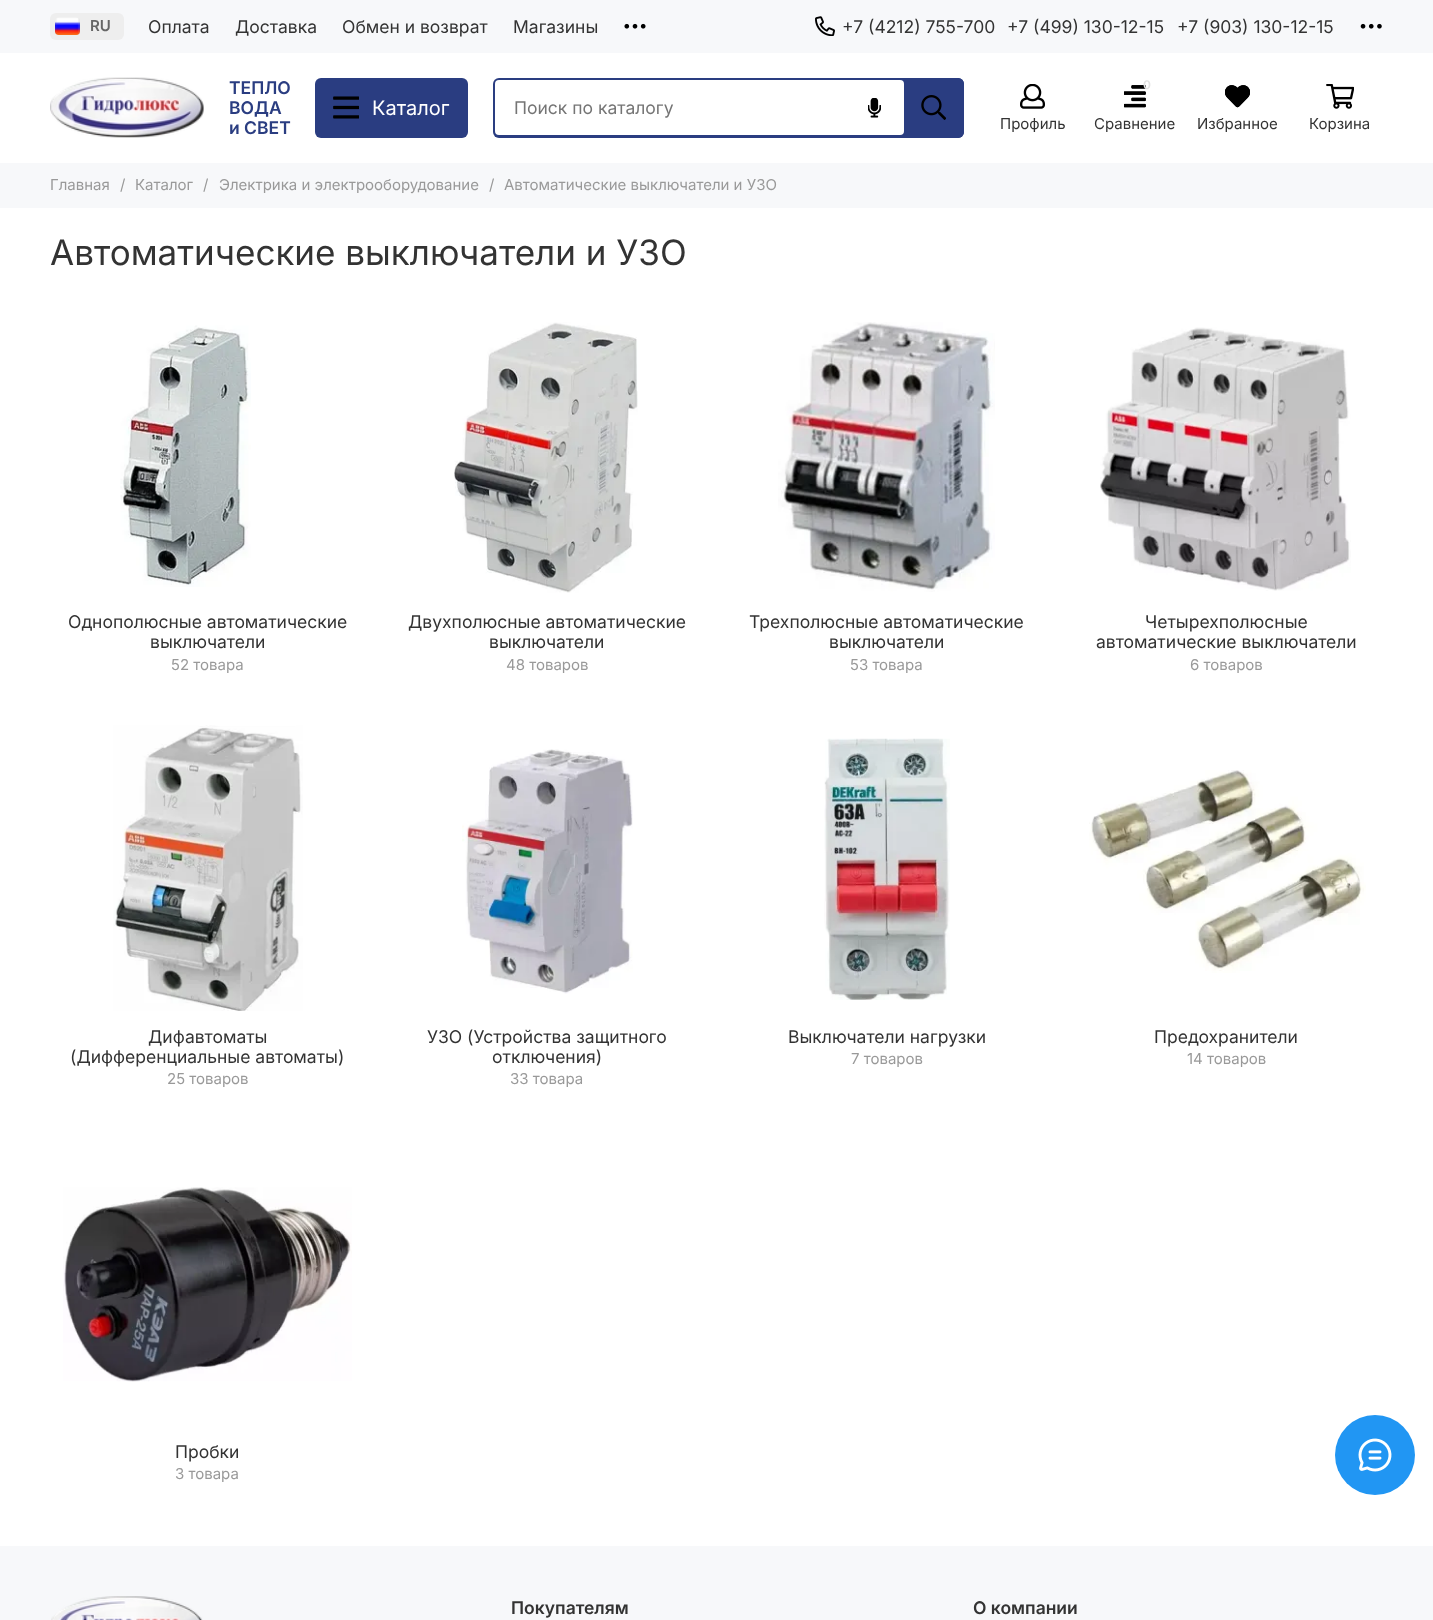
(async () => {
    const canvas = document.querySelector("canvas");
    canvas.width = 1433;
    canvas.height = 1620;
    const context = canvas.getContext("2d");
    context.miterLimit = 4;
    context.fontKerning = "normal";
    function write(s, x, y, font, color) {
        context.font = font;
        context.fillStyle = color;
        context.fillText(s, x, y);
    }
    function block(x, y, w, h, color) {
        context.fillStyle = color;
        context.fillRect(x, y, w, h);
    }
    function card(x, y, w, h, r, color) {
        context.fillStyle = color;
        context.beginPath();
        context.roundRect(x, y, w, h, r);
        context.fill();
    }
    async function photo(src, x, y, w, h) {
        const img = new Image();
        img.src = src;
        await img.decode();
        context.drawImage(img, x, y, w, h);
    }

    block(0, 0, 1433, 1620, "rgb(255, 255, 255)");
    block(0, 0, 1433, 53, "rgb(247, 248, 250)");
    card(50, 13, 74, 27, 6, "rgb(238, 238, 238)");
    await photo("media/1.png", 55, 17, 25, 18);
    write("RU", 90, 31, "600 15px Inter", "rgb(102, 102, 102)");
    write("Оплата", 148, 33, "17.5px Inter", "rgb(51, 51, 51)");
    write("Доставка", 235, 33, "17.5px Inter", "rgb(51, 51, 51)");
    write("Обмен и возврат", 342, 33, "17.5px Inter", "rgb(51, 51, 51)");
    write("Магазины", 513, 33, "17.5px Inter", "rgb(51, 51, 51)");
    await photo("media/2.png", 624, 23, 22, 6);
    await photo("media/3.png", 815, 16, 20, 20);
    write("+7 (4212) 755-700", 842, 33, "17.5px Inter", "rgb(51, 51, 51)");
    write("+7 (499) 130-12-15", 1007, 33, "17.5px Inter", "rgb(51, 51, 51)");
    write("+7 (903) 130-12-15", 1177, 33, "17.5px Inter", "rgb(51, 51, 51)");
    await photo("media/4.png", 1360, 23, 22, 6);
    await photo("media/5.png", 50, 77, 154, 61);
    write("ТЕПЛО", 229, 94, "600 17.5px Inter", "rgb(42, 61, 129)");
    write("ВОДА", 229, 114, "600 17.5px Inter", "rgb(42, 61, 129)");
    write("и СВЕТ", 229, 134, "600 17.5px Inter", "rgb(42, 61, 129)");
    card(315, 78, 153, 60, 6, "rgb(42, 61, 129)");
    await photo("media/6.png", 333, 96, 26, 23);
    write("Каталог", 372, 115, "20px Inter", "rgb(255, 255, 255)");
    card(493, 78, 471, 60, 6, "rgb(42, 61, 129)");
    card(495, 80, 409, 55, 4, "rgb(255, 255, 255)");
    write("Поиск по каталогу", 514, 114, "17.5px Inter", "rgb(117, 117, 117)");
    await photo("media/7.png", 868, 98, 13, 20);
    context.fillStyle = "rgb(42, 61, 129)";
    context.beginPath();
    context.roundRect(904, 78, 60, 60, [0, 6, 6, 0]);
    context.fill();
    await photo("media/8.png", 921, 95, 25, 25);
    await photo("media/9.png", 1020, 84, 25, 25);
    write("Профиль", 1000, 129, "15px Inter", "rgb(51, 51, 51)");
    await photo("media/10.png", 1124, 85, 22, 23);
    write("0", 1143, 89, "600 12px Inter", "rgb(226, 226, 226)");
    write("Сравнение", 1094, 129, "15px Inter", "rgb(51, 51, 51)");
    await photo("media/11.png", 1225, 85, 25, 23);
    write("Избранное", 1197, 129, "15px Inter", "rgb(51, 51, 51)");
    await photo("media/12.png", 1326, 84, 28, 25);
    write("Корзина", 1309, 129, "15px Inter", "rgb(51, 51, 51)");
    block(0, 163, 1433, 45, "rgb(247, 248, 250)");
    write("Главная", 50, 190, "15px Inter", "rgb(153, 153, 153)");
    write("/", 120, 190, "15px Inter", "rgb(153, 153, 153)");
    write("Каталог", 135, 190, "15px Inter", "rgb(153, 153, 153)");
    write("/", 203, 190, "15px Inter", "rgb(153, 153, 153)");
    write("Электрика и электрооборудование", 219, 190, "15px Inter", "rgb(153, 153, 153)");
    write("/", 489, 190, "15px Inter", "rgb(153, 153, 153)");
    write("Автоматические выключатели и УЗО", 504, 190, "15px Inter", "rgb(153, 153, 153)");
    write("Автоматические выключатели и УЗО", 50, 265, "35px Inter", "rgb(51, 51, 51)");
    await photo("media/13.png", 120, 325, 131, 262);
    write("Однополюсные автоматические", 68, 628, "17.5px Inter", "rgb(51, 51, 51)");
    write("выключатели", 150, 648, "17.5px Inter", "rgb(51, 51, 51)");
    write("52 товара", 171, 670, "15px Inter", "rgb(153, 153, 153)");
    await photo("media/14.png", 454, 322, 184, 271);
    write("Двухполюсные автоматические", 408, 628, "17.5px Inter", "rgb(51, 51, 51)");
    write("выключатели", 489, 648, "17.5px Inter", "rgb(51, 51, 51)");
    write("48 товаров", 506, 670, "15px Inter", "rgb(153, 153, 153)");
    await photo("media/15.png", 778, 322, 217, 270);
    write("Трехполюсные автоматические", 749, 628, "17.5px Inter", "rgb(51, 51, 51)");
    write("выключатели", 829, 648, "17.5px Inter", "rgb(51, 51, 51)");
    write("53 товара", 850, 670, "15px Inter", "rgb(153, 153, 153)");
    await photo("media/16.png", 1100, 327, 251, 264);
    write("Четырехполюсные", 1145, 628, "17.5px Inter", "rgb(51, 51, 51)");
    write("автоматические выключатели", 1096, 648, "17.5px Inter", "rgb(51, 51, 51)");
    write("6 товаров", 1190, 670, "15px Inter", "rgb(153, 153, 153)");
    await photo("media/17.png", 113, 725, 190, 286);
    write("Дифавтоматы", 148, 1043, "17.5px Inter", "rgb(51, 51, 51)");
    write("(Дифференциальные автоматы)", 70, 1063, "17.5px Inter", "rgb(51, 51, 51)");
    write("25 товаров", 167, 1084, "15px Inter", "rgb(153, 153, 153)");
    await photo("media/18.png", 462, 749, 171, 245);
    write("УЗО (Устройства защитного", 427, 1043, "17.5px Inter", "rgb(51, 51, 51)");
    write("отключения)", 492, 1063, "17.5px Inter", "rgb(51, 51, 51)");
    write("33 товара", 510, 1084, "15px Inter", "rgb(153, 153, 153)");
    await photo("media/19.png", 824, 738, 126, 262);
    write("Выключатели нагрузки", 788, 1043, "17.5px Inter", "rgb(51, 51, 51)");
    write("7 товаров", 851, 1064, "15px Inter", "rgb(153, 153, 153)");
    await photo("media/20.png", 1089, 770, 277, 203);
    write("Предохранители", 1154, 1043, "17.5px Inter", "rgb(51, 51, 51)");
    write("14 товаров", 1187, 1064, "15px Inter", "rgb(153, 153, 153)");
    await photo("media/21.png", 63, 1187, 289, 195);
    write("Пробки", 175, 1458, "17.5px Inter", "rgb(51, 51, 51)");
    write("3 товара", 175, 1479, "15px Inter", "rgb(153, 153, 153)");
    block(0, 1546, 1433, 74, "rgb(247, 248, 250)");
    await photo("media/22.png", 51, 1596, 152, 24);
    write("Покупателям", 511, 1614, "600 17.5px Inter", "rgb(51, 51, 51)");
    write("О компании", 973, 1614, "600 17.5px Inter", "rgb(51, 51, 51)");
    context.fillStyle = "rgb(33, 150, 243)";
    context.beginPath();
    context.arc(1375, 1455, 40, 0, Math.PI * 2);
    context.fill();
    await photo("media/23.png", 1358, 1438, 34, 34);
})();
